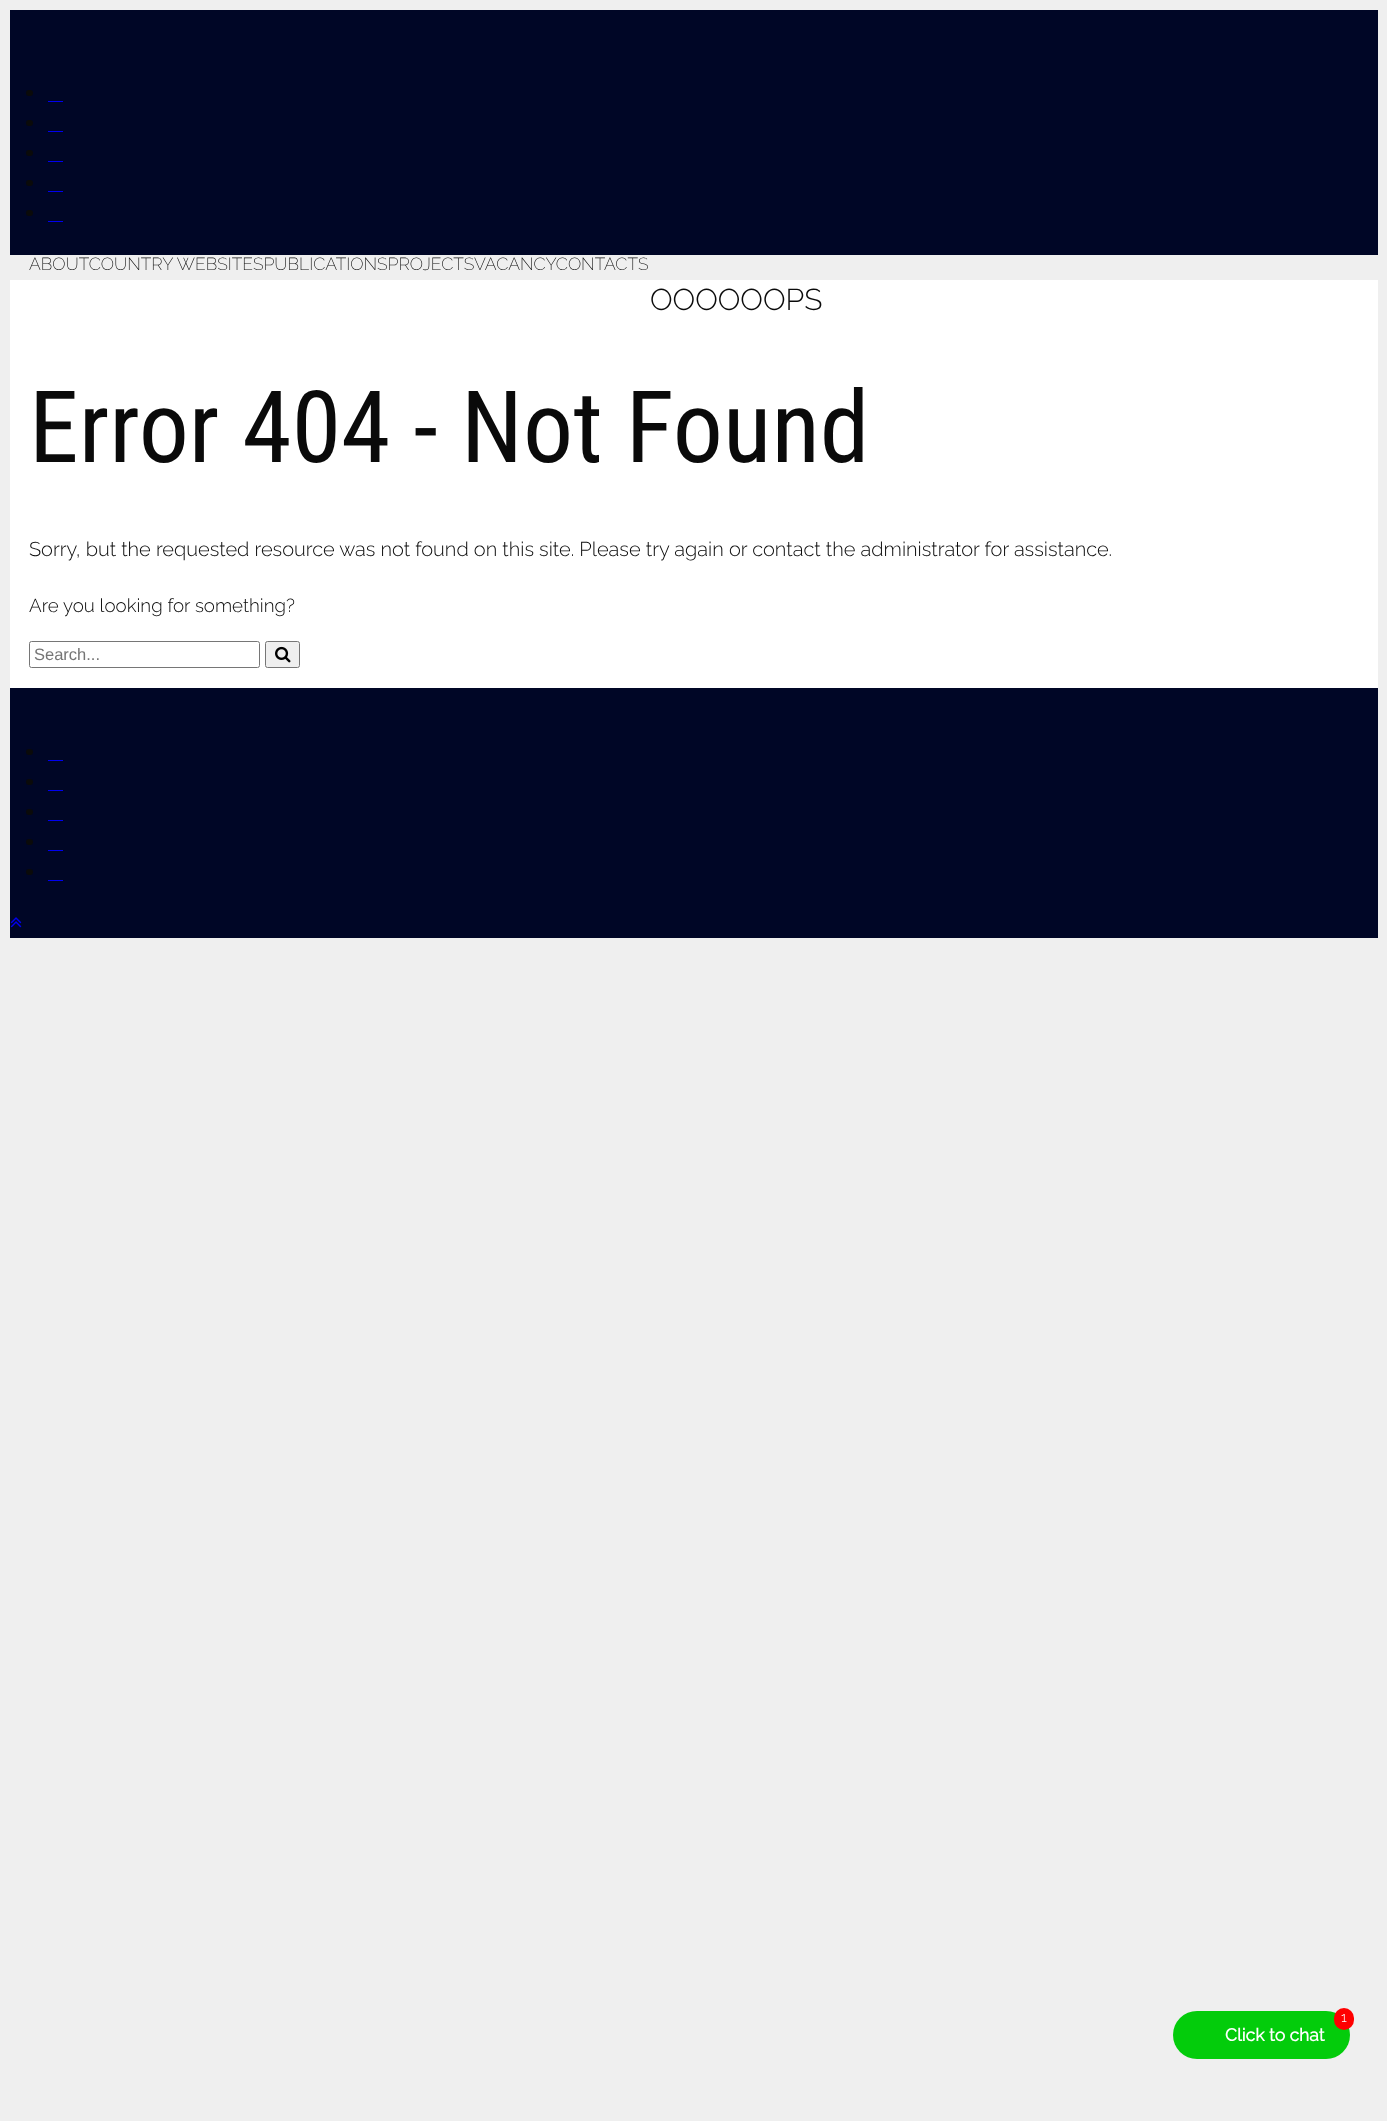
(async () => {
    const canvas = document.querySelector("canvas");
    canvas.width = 1387;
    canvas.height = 2121;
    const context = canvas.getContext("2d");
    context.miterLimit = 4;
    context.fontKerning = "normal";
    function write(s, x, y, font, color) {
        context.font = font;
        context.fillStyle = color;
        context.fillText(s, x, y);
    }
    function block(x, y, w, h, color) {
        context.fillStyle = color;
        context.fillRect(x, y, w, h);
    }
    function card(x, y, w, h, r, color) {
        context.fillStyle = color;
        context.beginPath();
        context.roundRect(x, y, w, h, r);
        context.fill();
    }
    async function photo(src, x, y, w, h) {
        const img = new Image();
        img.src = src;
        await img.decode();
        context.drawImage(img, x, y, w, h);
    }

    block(0, 0, 1387, 2121, "rgb(239, 239, 239)");
    block(10, 10, 1368, 245, "rgb(0, 6, 38)");
    card(26, 90, 7, 6, 3, "rgb(10, 10, 10)");
    block(48, 101, 15, 1, "rgb(0, 0, 238)");
    card(26, 120, 7, 6, 3, "rgb(10, 10, 10)");
    block(48, 131, 15, 1, "rgb(0, 0, 238)");
    card(26, 150, 7, 6, 3, "rgb(10, 10, 10)");
    block(48, 161, 15, 1, "rgb(0, 0, 238)");
    card(26, 180, 7, 6, 3, "rgb(10, 10, 10)");
    block(48, 191, 15, 1, "rgb(0, 0, 238)");
    card(26, 210, 7, 6, 3, "rgb(10, 10, 10)");
    block(48, 221, 15, 1, "rgb(0, 0, 238)");
    write("ABOUTCOUNTRY WEBSITESPUBLICATIONSPROJECTSVACANCYCONTACTS", 29, 270, "200 17.5px Raleway", "rgb(10, 10, 10)");
    block(10, 280, 1368, 408, "rgb(255, 255, 255)");
    write("OOOOOOPS", 650, 310, "300 30px Raleway", "rgb(10, 10, 10)");
    write("Error 404 - Not Found", 29, 462, "100px Roboto Condensed", "rgb(10, 10, 10)");
    write("Sorry, but the requested resource was not found on this site. Please try again or contact the administrator for assistance.", 29, 556, "300 20px Raleway", "rgb(10, 10, 10)");
    write("Are you looking for something?", 29, 612, "300 18.75px Raleway", "rgb(10, 10, 10)");
    context.beginPath();
    context.roundRect(29.5, 641.5, 230, 26, 2);
    context.strokeStyle = "rgb(118, 118, 118)";
    context.stroke();
    write("Search...", 34, 660, "16.5px Liberation Sans", "rgb(117, 117, 117)");
    context.fillStyle = "rgb(239, 239, 239)";
    context.beginPath();
    context.roundRect(265.5, 641.5, 34, 26, 2);
    context.fill();
    context.stroke();
    await photo("media/1.png", 275, 646, 16, 17);
    block(10, 688, 1368, 250, "rgb(0, 6, 38)");
    card(26, 749, 7, 6, 3, "rgb(10, 10, 10)");
    block(48, 760, 15, 1, "rgb(0, 0, 238)");
    card(26, 779, 7, 6, 3, "rgb(10, 10, 10)");
    block(48, 790, 15, 1, "rgb(0, 0, 238)");
    card(26, 809, 7, 6, 3, "rgb(10, 10, 10)");
    block(48, 820, 15, 1, "rgb(0, 0, 238)");
    card(26, 839, 7, 6, 3, "rgb(10, 10, 10)");
    block(48, 850, 15, 1, "rgb(0, 0, 238)");
    card(26, 869, 7, 6, 3, "rgb(10, 10, 10)");
    block(48, 880, 15, 1, "rgb(0, 0, 238)");
    await photo("media/2.png", 10, 917, 12, 11);
    card(1173, 2011, 177, 48, 24, "rgb(3, 204, 11)");
    card(1334, 2008, 20, 22, 10, "rgb(255, 0, 0)");
    write("1", 1341, 2022, "300 14px Raleway", "rgb(255, 255, 255)");
    write("Click to chat", 1225, 2041, "bold 17.5px Raleway", "rgb(255, 255, 255)");
})();
